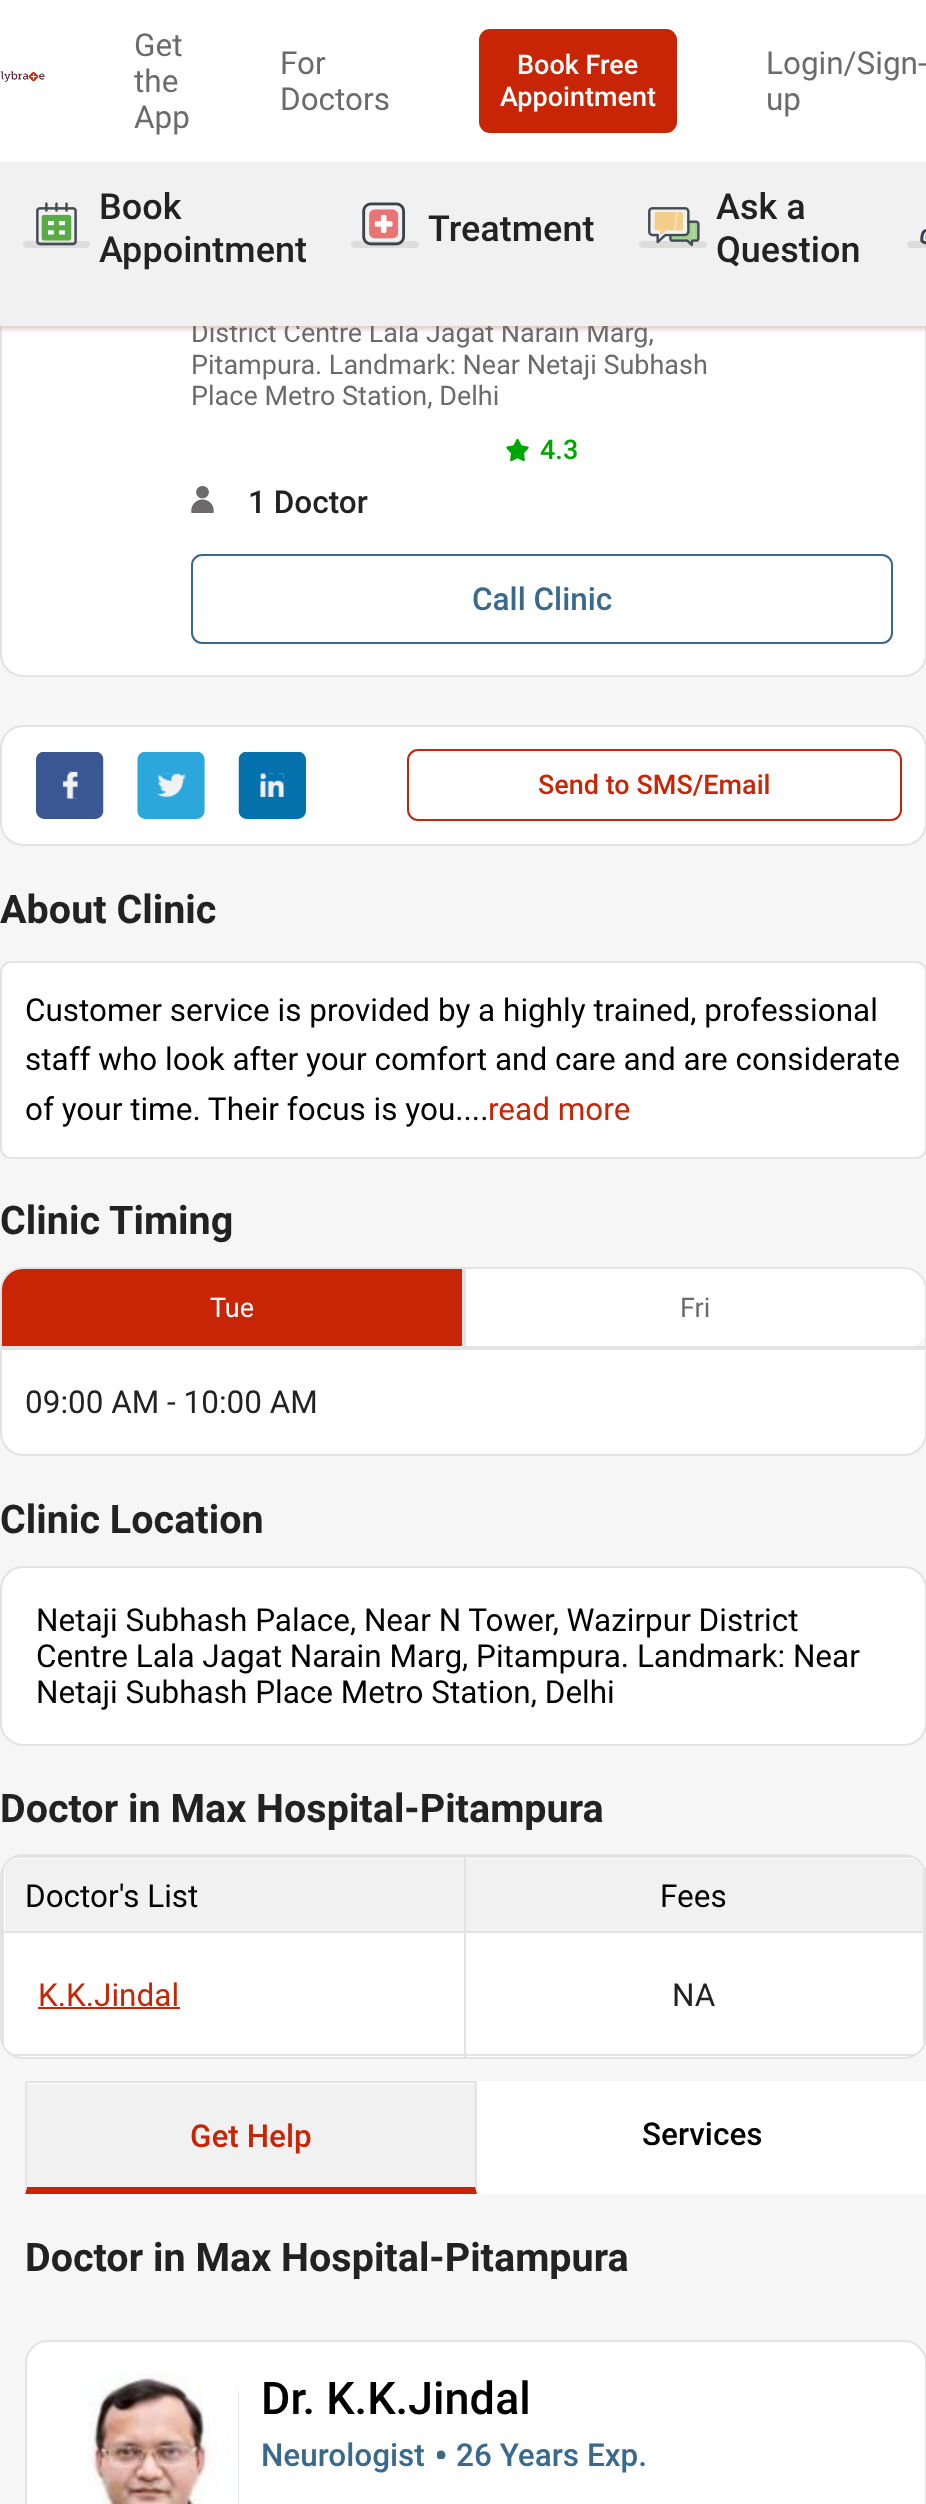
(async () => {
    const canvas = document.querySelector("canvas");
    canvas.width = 926;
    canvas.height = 2504;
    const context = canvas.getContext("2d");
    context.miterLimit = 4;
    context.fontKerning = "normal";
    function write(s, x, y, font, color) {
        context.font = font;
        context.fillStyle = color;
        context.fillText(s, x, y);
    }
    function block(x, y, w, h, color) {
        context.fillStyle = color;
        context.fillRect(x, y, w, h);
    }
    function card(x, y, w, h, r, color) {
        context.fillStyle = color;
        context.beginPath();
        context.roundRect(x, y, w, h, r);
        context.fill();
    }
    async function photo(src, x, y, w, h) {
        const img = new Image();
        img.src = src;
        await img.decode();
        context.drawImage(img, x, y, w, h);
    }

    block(0, 0, 926, 2504, "rgb(246, 246, 246)");
    context.fillStyle = "rgb(255, 255, 255)";
    context.beginPath();
    context.roundRect(1, 152, 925, 524, 22);
    context.fill();
    context.strokeStyle = "rgb(227, 227, 227)";
    context.lineWidth = 2;
    context.stroke();
    context.fillStyle = "rgba(0, 0, 0, 0.12)";
    context.filter = "blur(2px)";
    context.beginPath();
    context.rect(0, 133, 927, 196);
    context.fill();
    context.filter = "none";
    context.fillStyle = "rgba(221, 9, 9, 0.12)";
    context.filter = "blur(3.5px)";
    context.beginPath();
    context.rect(0, 133, 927, 196);
    context.fill();
    context.filter = "none";
    block(0, 0, 926, 162, "rgb(255, 255, 255)");
    await photo("media/1.png", 0, 71, 45, 11);
    write("Get", 134, 56, "31.5px Roboto", "rgb(108, 106, 106)");
    write("the", 134, 92, "31.5px Roboto", "rgb(108, 106, 106)");
    write("App", 134, 128, "31.5px Roboto", "rgb(108, 106, 106)");
    write("For", 280, 74, "31.5px Roboto", "rgb(108, 106, 106)");
    write("Doctors", 280, 110, "31.5px Roboto", "rgb(108, 106, 106)");
    context.fillStyle = "rgb(200, 37, 6)";
    context.beginPath();
    context.roundRect(480, 30, 196, 102, 10);
    context.fill();
    context.strokeStyle = "rgb(200, 37, 6)";
    context.stroke();
    write("Book Free", 517, 74, "500 27px Roboto", "rgb(255, 255, 255)");
    write("Appointment", 500, 106, "500 27px Roboto", "rgb(255, 255, 255)");
    write("Login/Sign-", 766, 74, "31.5px Roboto", "rgb(108, 106, 106)");
    write("up", 766, 110, "31.5px Roboto", "rgb(108, 106, 106)");
    write("District Centre Lala Jagat Narain Marg,", 191, 342, "27px Roboto", "rgb(108, 106, 106)");
    block(0, 162, 926, 164, "rgb(241, 241, 241)");
    await photo("media/2.png", 23, 202, 67, 46);
    write("Book", 99, 219, "500 36px Roboto", "rgb(34, 34, 34)");
    write("Appointment", 99, 262, "500 36px Roboto", "rgb(34, 34, 34)");
    await photo("media/3.png", 351, 202, 68, 46);
    write("Treatment", 428, 241, "500 36px Roboto", "rgb(34, 34, 34)");
    await photo("media/4.png", 639, 207, 68, 41);
    write("Ask a", 716, 219, "500 36px Roboto", "rgb(34, 34, 34)");
    write("Question", 716, 262, "500 36px Roboto", "rgb(34, 34, 34)");
    await photo("media/5.png", 907, 229, 19, 19);
    write("Pitampura. Landmark: Near Netaji Subhash", 191, 374, "27px Roboto", "rgb(108, 106, 106)");
    write("Place Metro Station, Delhi", 191, 405, "27px Roboto", "rgb(108, 106, 106)");
    await photo("media/6.png", 506, 439, 23, 22);
    write("4.3", 540, 459, "500 27px Roboto", "rgb(0, 166, 0)");
    await photo("media/7.png", 191, 486, 23, 27);
    write("1 Doctor", 248, 513, "500 31.5px Roboto", "rgb(34, 34, 34)");
    context.beginPath();
    context.roundRect(192, 555, 700, 88, 10);
    context.strokeStyle = "rgb(58, 105, 142)";
    context.stroke();
    write("Call Clinic", 472, 610, "500 31.5px Roboto", "rgb(58, 105, 142)");
    context.fillStyle = "rgb(255, 255, 255)";
    context.beginPath();
    context.roundRect(1, 726, 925, 119, 22);
    context.fill();
    context.strokeStyle = "rgb(227, 227, 227)";
    context.stroke();
    await photo("media/8.png", 36, 752, 68, 67);
    await photo("media/9.png", 137, 752, 68, 67);
    await photo("media/10.png", 238, 752, 68, 67);
    context.beginPath();
    context.roundRect(408, 750, 493, 70, 10);
    context.strokeStyle = "rgb(200, 37, 6)";
    context.stroke();
    write("Send to SMS/Email", 538, 794, "500 27px Roboto", "rgb(200, 37, 6)");
    write("About Clinic", 0, 923, "bold 39.5px Roboto", "rgb(34, 34, 34)");
    context.fillStyle = "rgb(255, 255, 255)";
    context.beginPath();
    context.roundRect(1, 962, 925, 196, 10);
    context.fill();
    context.strokeStyle = "rgb(227, 227, 227)";
    context.stroke();
    write("Customer service is provided by a highly trained, professional", 25, 1021, "31.5px Roboto", "rgb(0, 0, 0)");
    write("staff who look after your comfort and care and are considerate", 25, 1070, "31.5px Roboto", "rgb(0, 0, 0)");
    write("of your time. Their focus is you....", 25, 1120, "31.5px Roboto", "rgb(0, 0, 0)");
    write("read more", 488, 1120, "31.5px Roboto", "rgb(200, 37, 6)");
    write("Clinic", 0, 1234, "bold 39.5px Roboto", "rgb(34, 34, 34)");
    write("Timing", 109, 1234, "bold 39.5px Roboto", "rgb(34, 34, 34)");
    card(0, 1267, 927, 81, 23, "rgb(255, 255, 255)");
    context.fillStyle = "rgb(200, 37, 6)";
    context.beginPath();
    context.roundRect(1, 1268, 462, 79, [22, 0, 0, 0]);
    context.fill();
    context.stroke();
    write("Tue", 210, 1317, "27px Roboto", "rgb(255, 255, 255)");
    context.beginPath();
    context.moveTo(465, 1268);
    context.lineTo(904, 1268);
    context.bezierCurveTo(916, 1268, 926, 1278, 926, 1290);
    context.lineTo(926, 1347);
    context.lineTo(465, 1347);
    context.closePath();
    context.stroke();
    write("Fri", 680, 1317, "27px Roboto", "rgb(108, 106, 106)");
    context.fillStyle = "rgb(255, 255, 255)";
    context.beginPath();
    context.moveTo(1, 1349);
    context.lineTo(926, 1349);
    context.lineTo(926, 1433);
    context.bezierCurveTo(926, 1445, 916, 1455, 904, 1455);
    context.lineTo(23, 1455);
    context.bezierCurveTo(11, 1455, 1, 1445, 1, 1433);
    context.closePath();
    context.fill();
    context.stroke();
    write("09:00 AM - 10:00 AM", 25, 1413, "31.5px Roboto", "rgb(34, 34, 34)");
    write("Clinic Location", 0, 1533, "bold 39.5px Roboto", "rgb(34, 34, 34)");
    context.fillStyle = "rgb(255, 255, 255)";
    context.beginPath();
    context.roundRect(1, 1567, 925, 178, 22);
    context.fill();
    context.stroke();
    write("Netaji Subhash Palace, Near N Tower, Wazirpur District", 36, 1631, "31.5px Roboto", "rgb(0, 0, 0)");
    write("Centre Lala Jagat Narain Marg, Pitampura. Landmark: Near", 36, 1667, "31.5px Roboto", "rgb(0, 0, 0)");
    write("Netaji Subhash Place Metro Station, Delhi", 36, 1703, "31.5px Roboto", "rgb(0, 0, 0)");
    write("Doctor in Max Hospital-Pitampura", 0, 1822, "bold 39.5px Roboto", "rgb(34, 34, 34)");
    context.fillStyle = "rgb(255, 255, 255)";
    context.beginPath();
    context.roundRect(1, 1855, 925, 203, 22);
    context.fill();
    context.stroke();
    card(2, 1856, 923, 201, 23, "rgb(255, 255, 255)");
    context.save();
    context.beginPath();
    context.roundRect(2, 1856, 923, 201, 20);
    context.clip();
    block(5, 1859, 459, 72, "rgb(241, 241, 241)");
    block(464, 1856, 450, 2, "rgb(227, 227, 227)");
    context.restore();
    block(464, 1931, 461, 2, "rgb(227, 227, 227)");
    context.save();
    context.beginPath();
    context.roundRect(2, 1856, 923, 201, 20);
    context.clip();
    block(464, 2054, 452, 2, "rgb(227, 227, 227)");
    context.restore();
    block(464, 1931, 2, 126, "rgb(227, 227, 227)");
    block(2, 1931, 464, 2, "rgb(227, 227, 227)");
    block(464, 1856, 2, 77, "rgb(227, 227, 227)");
    context.save();
    context.beginPath();
    context.roundRect(2, 1856, 923, 201, 20);
    context.clip();
    block(13, 1856, 453, 2, "rgb(227, 227, 227)");
    block(2, 1931, 2, 115, "rgb(227, 227, 227)");
    block(2, 1867, 2, 66, "rgb(227, 227, 227)");
    context.restore();
    write("Doctor's List", 25, 1907, "31.5px Roboto", "rgb(0, 0, 0)");
    context.save();
    context.beginPath();
    context.roundRect(2, 1856, 923, 201, 20);
    context.clip();
    block(466, 1859, 459, 72, "rgb(241, 241, 241)");
    block(923, 1931, 2, 115, "rgb(227, 227, 227)");
    block(923, 1867, 2, 66, "rgb(227, 227, 227)");
    context.restore();
    write("Fees", 660, 1907, "31.5px Roboto", "rgb(0, 0, 0)");
    context.save();
    context.beginPath();
    context.roundRect(2, 1856, 923, 201, 20);
    context.clip();
    block(11, 2054, 455, 2, "rgb(227, 227, 227)");
    context.restore();
    write("K.K.Jindal", 38, 2006, "31.5px Roboto", "rgb(200, 37, 6)");
    block(38, 2007, 142, 2, "rgb(200, 37, 6)");
    write("NA", 672, 2006, "31.5px Roboto", "rgb(34, 34, 34)");
    block(25, 2081, 901, 113, "rgb(255, 255, 255)");
    block(27, 2084, 448, 103, "rgb(241, 241, 241)");
    block(25, 2081, 452, 2, "rgb(227, 227, 227)");
    context.beginPath();
    context.moveTo(477, 2081);
    context.lineTo(477, 2194);
    context.lineTo(475, 2187);
    context.lineTo(475, 2084);
    context.closePath();
    context.fill();
    context.fillStyle = "rgb(200, 37, 6)";
    context.beginPath();
    context.moveTo(477, 2194);
    context.lineTo(25, 2194);
    context.lineTo(27, 2187);
    context.lineTo(475, 2187);
    context.closePath();
    context.fill();
    context.fillStyle = "rgb(227, 227, 227)";
    context.beginPath();
    context.moveTo(25, 2194);
    context.lineTo(25, 2081);
    context.lineTo(27, 2084);
    context.lineTo(27, 2187);
    context.closePath();
    context.fill();
    write("Get Help", 190, 2147, "500 31.5px Roboto", "rgb(200, 37, 6)");
    write("Services", 642, 2145, "500 31.5px Roboto", "rgb(0, 0, 0)");
    write("Doctor in Max Hospital-Pitampura", 25, 2271, "bold 39.5px Roboto", "rgb(34, 34, 34)");
    context.fillStyle = "rgb(255, 255, 255)";
    context.beginPath();
    context.roundRect(26, 2341, 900, 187, 22);
    context.fill();
    context.stroke();
    card(59, 2374, 180, 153, 23, "rgb(227, 227, 227)");
    await photo("media/11.png", 59, 2374, 180, 130);
    write("Dr. K.K.Jindal", 261, 2414, "500 45px Roboto", "rgb(0, 0, 0)");
    write("Neurologist", 261, 2466, "500 31.5px Roboto", "rgb(58, 105, 142)");
    context.save();
    context.beginPath();
    context.rect(437, 2450, 9, 9);
    context.clip();
    context.beginPath();
    context.arc(441, 2455, 4.5, 0, Math.PI * 2);
    context.fill();
    context.restore();
    write("26 Years Exp.", 456, 2466, "500 31.5px Roboto", "rgb(58, 105, 142)");
})();
